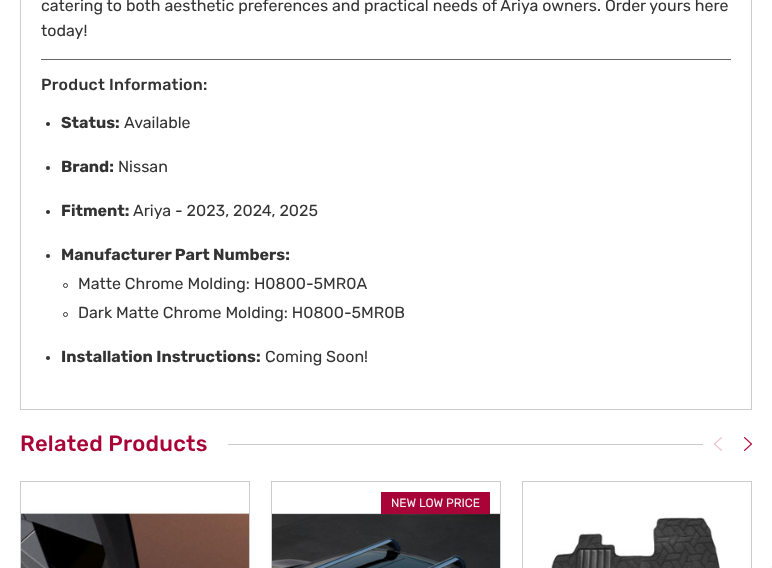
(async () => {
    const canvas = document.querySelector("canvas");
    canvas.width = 772;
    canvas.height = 568;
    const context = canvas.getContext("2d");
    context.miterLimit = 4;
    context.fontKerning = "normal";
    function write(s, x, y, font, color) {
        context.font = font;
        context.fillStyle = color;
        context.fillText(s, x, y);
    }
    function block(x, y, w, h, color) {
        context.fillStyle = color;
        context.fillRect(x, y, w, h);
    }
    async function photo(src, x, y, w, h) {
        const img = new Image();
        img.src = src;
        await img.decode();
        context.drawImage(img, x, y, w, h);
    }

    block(0, 0, 772, 568, "rgb(255, 255, 255)");
    block(751, 0, 1, 410, "rgb(204, 204, 204)");
    block(20, 0, 1, 410, "rgb(204, 204, 204)");
    block(21, 409, 730, 1, "rgb(204, 204, 204)");
    write("catering to both aesthetic preferences and practical needs of Ariya owners. Order yours here", 41, 11, "16px Rubik", "rgb(51, 51, 51)");
    write("today!", 41, 36, "16px Rubik", "rgb(51, 51, 51)");
    block(41, 59, 690, 1, "rgb(102, 102, 102)");
    context.letterSpacing = "0.25px";
    write("Product Information:", 41, 90, "500 16px Rubik", "rgb(51, 51, 51)");
    context.beginPath();
    context.arc(48, 124, 2, 0, Math.PI * 2);
    context.fill();
    context.letterSpacing = "0px";
    write("Status:", 61, 128, "bold 16px Rubik", "rgb(51, 51, 51)");
    write("Available", 124, 128, "16px Rubik", "rgb(51, 51, 51)");
    context.beginPath();
    context.arc(48, 168, 2, 0, Math.PI * 2);
    context.fill();
    write("Brand:", 61, 172, "bold 16px Rubik", "rgb(51, 51, 51)");
    write("Nissan", 118, 172, "16px Rubik", "rgb(51, 51, 51)");
    context.beginPath();
    context.arc(48, 212, 2, 0, Math.PI * 2);
    context.fill();
    write("Fitment:", 61, 216, "bold 16px Rubik", "rgb(51, 51, 51)");
    write("Ariya - 2023, 2024, 2025", 133, 216, "16px Rubik", "rgb(51, 51, 51)");
    context.beginPath();
    context.arc(48, 256, 2, 0, Math.PI * 2);
    context.fill();
    write("Manufacturer Part Numbers:", 61, 260, "bold 16px Rubik", "rgb(51, 51, 51)");
    context.beginPath();
    context.arc(65.5, 285.5, 2, 0, Math.PI * 2);
    context.strokeStyle = "rgb(51, 51, 51)";
    context.stroke();
    write("Matte Chrome Molding: H0800-5MR0A", 78, 289, "16px Rubik", "rgb(51, 51, 51)");
    context.beginPath();
    context.arc(65.5, 314.5, 2, 0, Math.PI * 2);
    context.stroke();
    write("Dark Matte Chrome Molding: H0800-5MR0B", 78, 318, "16px Rubik", "rgb(51, 51, 51)");
    context.beginPath();
    context.arc(48, 358, 2, 0, Math.PI * 2);
    context.fill();
    write("Installation Instructions:", 61, 362, "bold 16px Rubik", "rgb(51, 51, 51)");
    write("Coming Soon!", 265, 362, "16px Rubik", "rgb(51, 51, 51)");
    context.letterSpacing = "0.25px";
    write("Related Products", 20, 451, "500 22px Rubik", "rgb(168, 4, 55)");
    block(228, 444, 475, 1, "rgb(204, 204, 204)");
    await photo("media/1.png", 714, 437, 8, 14);
    await photo("media/2.png", 744, 437, 8, 14);
    context.strokeStyle = "rgb(204, 204, 204)";
    context.strokeRect(20.5, 481.5, 229, 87);
    await photo("media/3.png", 21, 510, 228, 58);
    context.strokeRect(271.5, 481.5, 229, 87);
    await photo("media/4.png", 272, 513, 228, 55);
    block(381, 492, 109, 22, "rgb(168, 4, 55)");
    context.letterSpacing = "0px";
    write("NEW LOW PRICE", 391, 507, "12px Rubik", "rgb(245, 245, 245)");
    context.strokeRect(522.5, 481.5, 229, 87);
    await photo("media/5.png", 550, 517, 170, 51);
    block(770, 566, 2, 2, "rgb(245, 245, 245)");
})();
